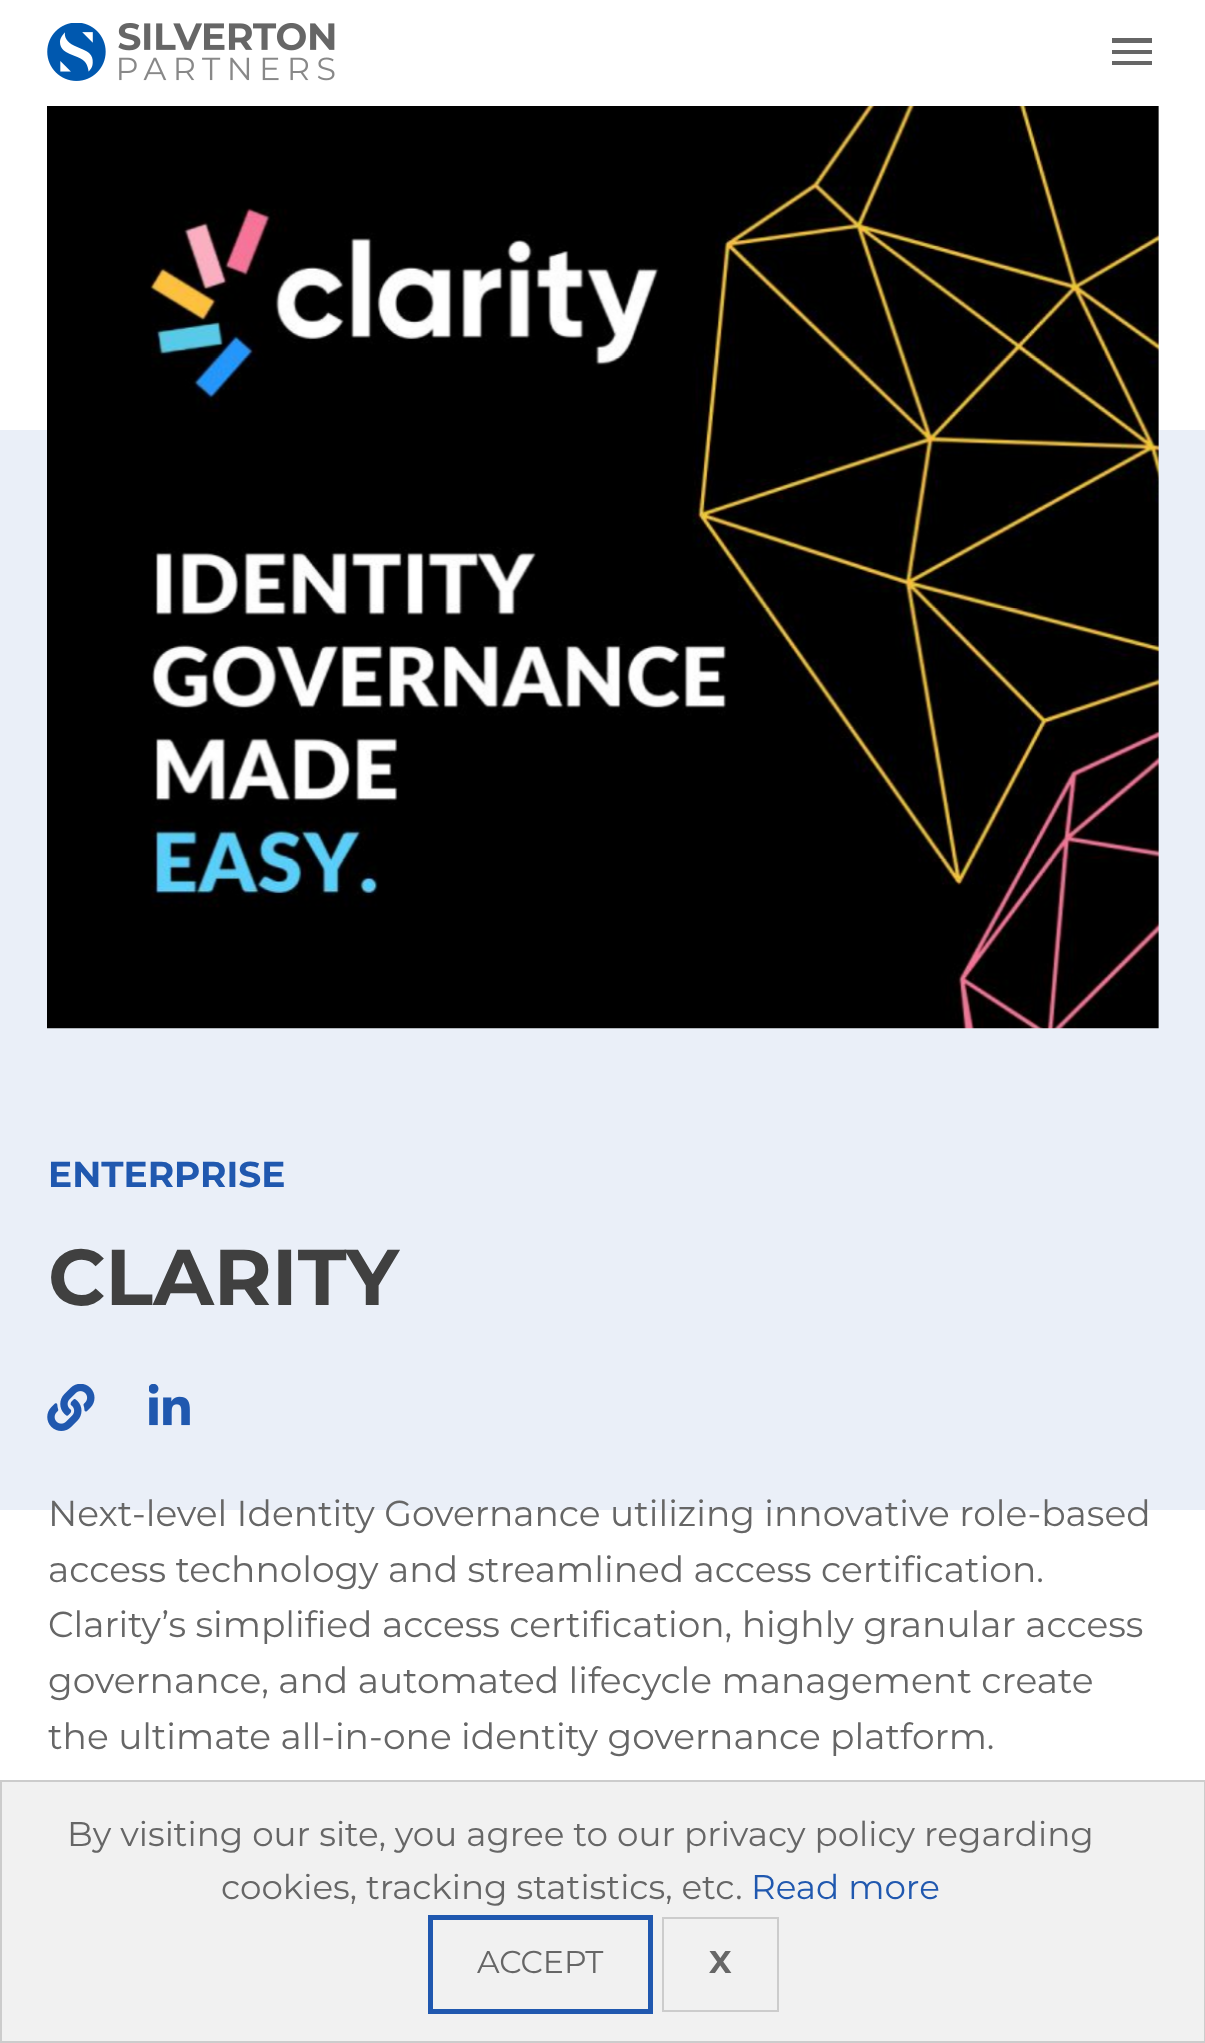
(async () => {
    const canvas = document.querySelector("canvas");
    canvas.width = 1205;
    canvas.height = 2043;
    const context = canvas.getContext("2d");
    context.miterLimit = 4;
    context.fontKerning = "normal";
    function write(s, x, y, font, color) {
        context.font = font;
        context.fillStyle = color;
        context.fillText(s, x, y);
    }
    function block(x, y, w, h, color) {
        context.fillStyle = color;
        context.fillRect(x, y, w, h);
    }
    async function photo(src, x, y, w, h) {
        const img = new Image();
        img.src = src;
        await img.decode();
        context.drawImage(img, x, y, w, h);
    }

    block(0, 0, 1205, 2043, "rgb(255, 255, 255)");
    await photo("media/1.png", 47, 23, 288, 58);
    context.fillStyle = "rgb(102, 102, 102)";
    context.beginPath();
    context.moveTo(1112, 65);
    context.lineTo(1152, 65);
    context.lineTo(1152, 61);
    context.lineTo(1112, 61);
    context.closePath();
    context.moveTo(1112, 54);
    context.lineTo(1152, 54);
    context.lineTo(1152, 50);
    context.lineTo(1112, 50);
    context.closePath();
    context.moveTo(1112, 38);
    context.lineTo(1112, 43);
    context.lineTo(1152, 43);
    context.lineTo(1152, 38);
    context.closePath();
    context.fill();
    block(0, 430, 1205, 1080, "rgb(234, 239, 248)");
    await photo("media/2.png", 47, 106, 1112, 923);
    write("ENTERPRISE", 48, 1187, "bold 36px Montserrat", "rgb(32, 88, 175)");
    write("CLARITY", 48, 1305, "bold 79px Montserrat", "rgb(64, 64, 64)");
    await photo("media/3.png", 47, 1384, 48, 47);
    await photo("media/4.png", 149, 1384, 41, 42);
    write("Next-level Identity Governance utilizing innovative role-based", 48, 1526, "36px Montserrat", "rgb(102, 102, 102)");
    write("access technology and streamlined access certification.", 48, 1582, "36px Montserrat", "rgb(102, 102, 102)");
    write("Clarity’s simplified access certification, highly granular access", 48, 1637, "36px Montserrat", "rgb(102, 102, 102)");
    write("governance, and automated lifecycle management create", 48, 1693, "36px Montserrat", "rgb(102, 102, 102)");
    write("the ultimate all-in-one identity governance platform.", 48, 1749, "36px Montserrat", "rgb(102, 102, 102)");
    context.fillStyle = "rgb(241, 241, 241)";
    context.beginPath();
    context.rect(1, 1781, 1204, 261);
    context.fill();
    context.strokeStyle = "rgb(204, 204, 204)";
    context.lineWidth = 2;
    context.stroke();
    write("By visiting our site, you agree to our privacy policy regarding", 67, 1846, "34.2px Montserrat", "rgb(102, 102, 102)");
    write("cookies, tracking statistics, etc.", 221, 1899, "34.2px Montserrat", "rgb(102, 102, 102)");
    write("Read more", 751, 1899, "34.2px Montserrat", "rgb(32, 88, 175)");
    context.strokeStyle = "rgb(32, 88, 175)";
    context.lineWidth = 5;
    context.strokeRect(430.5, 1917.5, 220, 94);
    write("ACCEPT", 477, 1973, "31.5px Montserrat", "rgb(102, 102, 102)");
    context.strokeStyle = "rgb(204, 204, 204)";
    context.lineWidth = 2;
    context.strokeRect(663, 1918, 115, 93);
    write("X", 709, 1973, "bold 31.5px Montserrat", "rgb(102, 102, 102)");
})();
